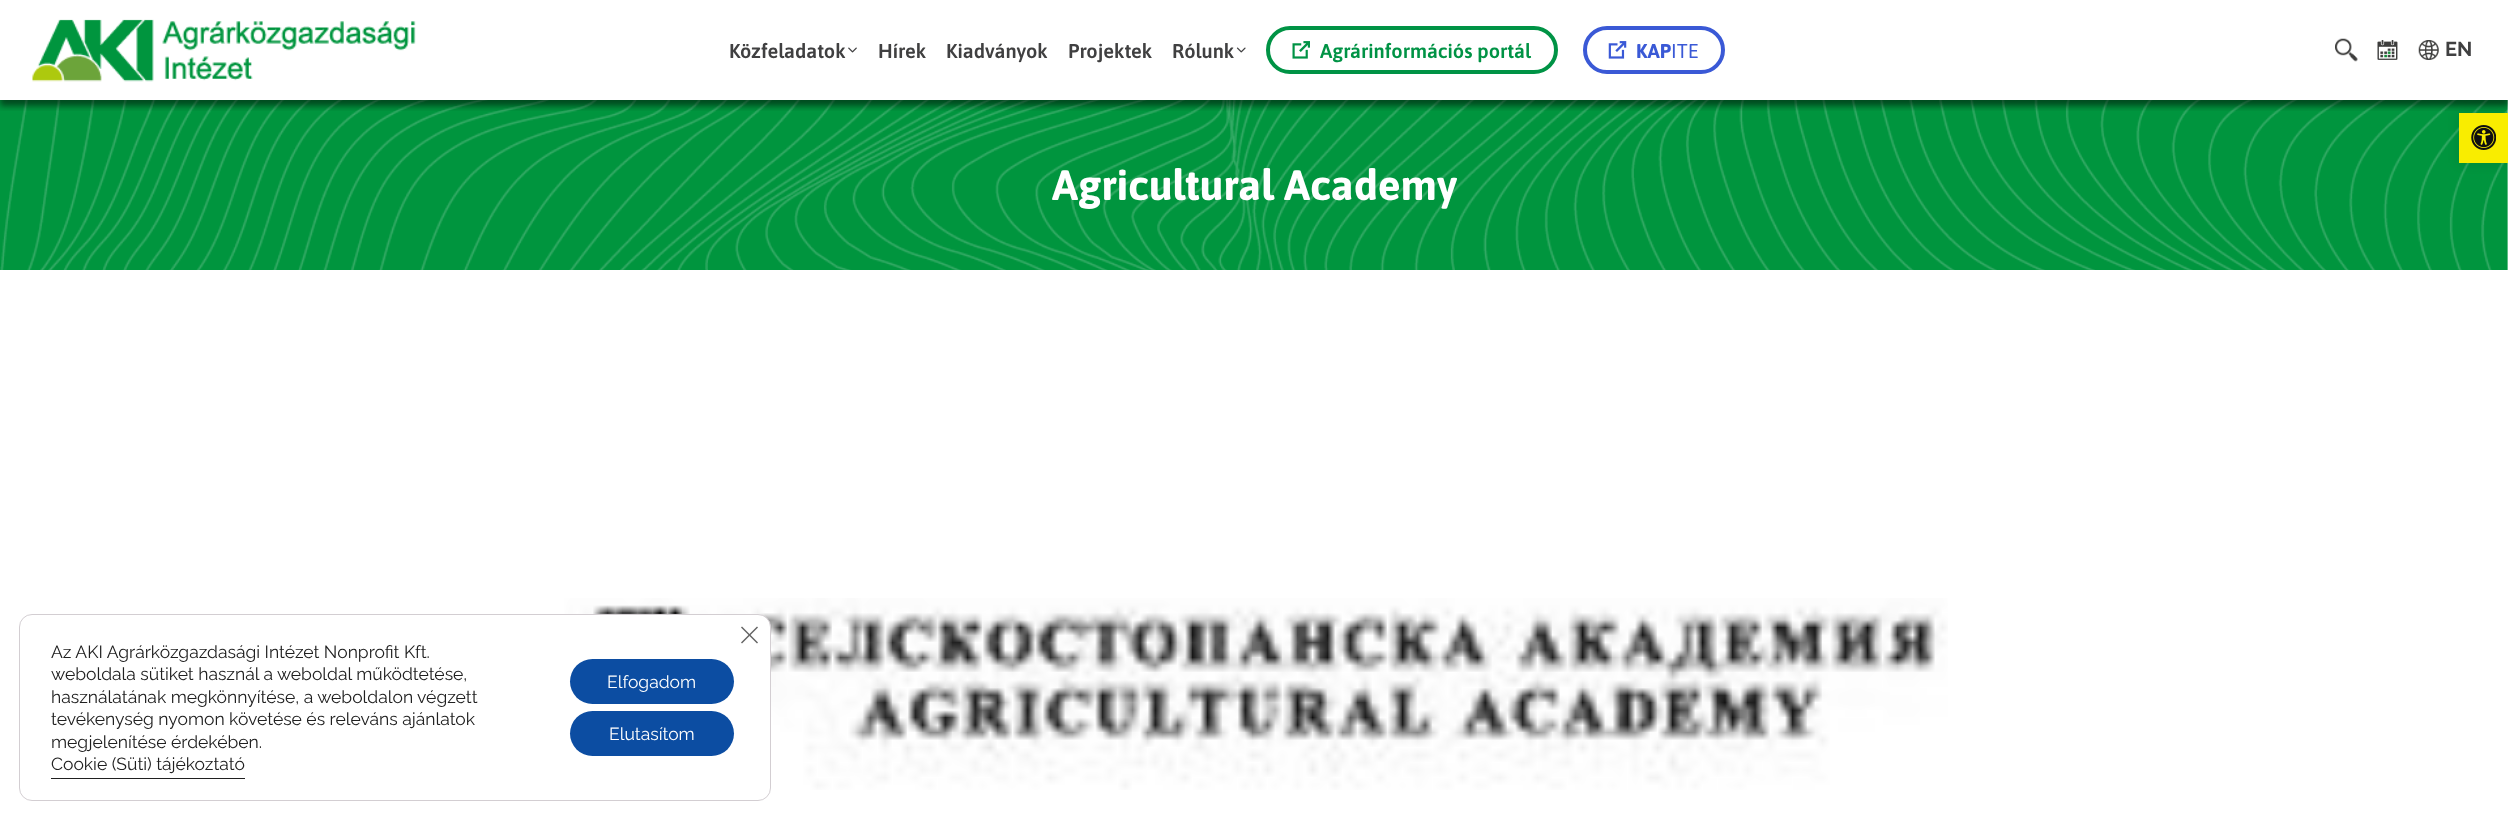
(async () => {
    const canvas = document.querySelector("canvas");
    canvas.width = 2508;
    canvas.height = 820;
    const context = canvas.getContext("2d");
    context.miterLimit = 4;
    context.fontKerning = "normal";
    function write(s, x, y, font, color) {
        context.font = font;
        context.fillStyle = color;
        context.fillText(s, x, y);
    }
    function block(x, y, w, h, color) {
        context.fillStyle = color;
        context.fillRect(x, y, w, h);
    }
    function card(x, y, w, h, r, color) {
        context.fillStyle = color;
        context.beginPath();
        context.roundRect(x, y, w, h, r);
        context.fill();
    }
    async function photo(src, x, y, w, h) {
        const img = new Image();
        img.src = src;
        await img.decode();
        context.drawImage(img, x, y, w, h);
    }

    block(0, 0, 2508, 820, "rgb(255, 255, 255)");
    await photo("media/9.png", 0, 100, 2508, 170);
    context.save();
    context.beginPath();
    context.rect(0, 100, 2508, 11);
    context.clip();
    context.fillStyle = "rgba(0, 0, 0, 0.5)";
    context.filter = "blur(3px)";
    context.beginPath();
    context.rect(0, 6, 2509, 100);
    context.fill();
    context.filter = "none";
    context.restore();
    await photo("media/1.png", 32, 19, 384, 63);
    write("Közfeladatok", 729, 58, "600 20px Asap", "rgb(64, 64, 65)");
    await photo("media/2.png", 848, 47, 9, 6);
    write("Hírek", 878, 58, "600 20px Asap", "rgb(64, 64, 65)");
    write("Kiadványok", 946, 58, "600 20px Asap", "rgb(64, 64, 65)");
    write("Projektek", 1068, 58, "600 20px Asap", "rgb(64, 64, 65)");
    write("Rólunk", 1172, 58, "600 20px Asap", "rgb(64, 64, 65)");
    await photo("media/3.png", 1236, 47, 10, 6);
    context.beginPath();
    context.roundRect(1268, 28, 288, 44, 22);
    context.strokeStyle = "rgb(0, 147, 69)";
    context.lineWidth = 4;
    context.stroke();
    await photo("media/4.png", 1292, 41, 18, 18);
    write("Agrárinformációs portál", 1320, 58, "600 20px Asap", "rgb(0, 147, 69)");
    context.beginPath();
    context.roundRect(1585, 28, 138, 44, 22);
    context.strokeStyle = "rgb(58, 89, 214)";
    context.stroke();
    await photo("media/5.png", 1608, 41, 19, 18);
    write("KAP", 1636, 58, "bold 20px Asap", "rgb(58, 89, 214)");
    write("ITE", 1671, 58, "20px Asap", "rgb(58, 89, 214)");
    await photo("media/6.png", 2335, 38, 23, 24);
    await photo("media/7.png", 2377, 40, 21, 20);
    await photo("media/8.png", 2418, 40, 21, 20);
    write("EN", 2445, 56, "bold 20px Raleway", "rgb(64, 64, 65)");
    write("Agricultural Academy", 1052, 200, "bold 42.5px Asap", "rgb(255, 255, 255)");
    await photo("media/10.png", 564, 598, 1384, 192);
    context.fillStyle = "rgba(0, 0, 0, 0.1)";
    context.filter = "blur(6px)";
    context.beginPath();
    context.rect(2459, 113, 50, 50);
    context.fill();
    context.filter = "none";
    block(2459, 113, 49, 50, "rgb(249, 237, 0)");
    await photo("media/11.png", 2471, 125, 25, 25);
    context.fillStyle = "rgb(255, 255, 255)";
    context.beginPath();
    context.roundRect(19.5, 614.5, 751, 186, 12.5);
    context.fill();
    context.strokeStyle = "rgb(211, 206, 210)";
    context.lineWidth = 1;
    context.stroke();
    write("Az AKI Agrárközgazdasági Intézet Nonprofit Kft.", 51, 658, "17.5px Raleway", "rgb(32, 32, 32)");
    write("weboldala sütiket használ a weboldal működtetése,", 51, 680, "17.5px Raleway", "rgb(32, 32, 32)");
    write("használatának megkönnyítése, a weboldalon végzett", 51, 703, "17.5px Raleway", "rgb(32, 32, 32)");
    write("tevékenység nyomon követése és releváns ajánlatok", 51, 725, "17.5px Raleway", "rgb(32, 32, 32)");
    write("megjelenítése érdekében.", 51, 748, "17.5px Raleway", "rgb(32, 32, 32)");
    write("Cookie (Süti) tájékoztató", 51, 770, "17.5px Raleway", "rgb(32, 32, 32)");
    block(51, 778, 194, 1, "rgb(32, 32, 32)");
    context.fillStyle = "rgb(98, 98, 98)";
    context.beginPath();
    context.moveTo(757, 626.5);
    context.lineTo(758, 627.5);
    context.lineTo(742, 643.5);
    context.lineTo(741, 642.5);
    context.closePath();
    context.fill();
    context.beginPath();
    context.moveTo(741, 627.5);
    context.lineTo(742, 626.5);
    context.lineTo(758, 642.5);
    context.lineTo(757, 643.5);
    context.closePath();
    context.fill();
    card(570, 659, 164, 45, 22.5, "rgb(12, 77, 162)");
    write("Elfogadom", 607, 688, "17.5px Raleway", "rgb(255, 255, 255)");
    card(570, 711, 164, 45, 22.5, "rgb(12, 77, 162)");
    write("Elutasítom", 609, 740, "17.5px Raleway", "rgb(255, 255, 255)");
})();
